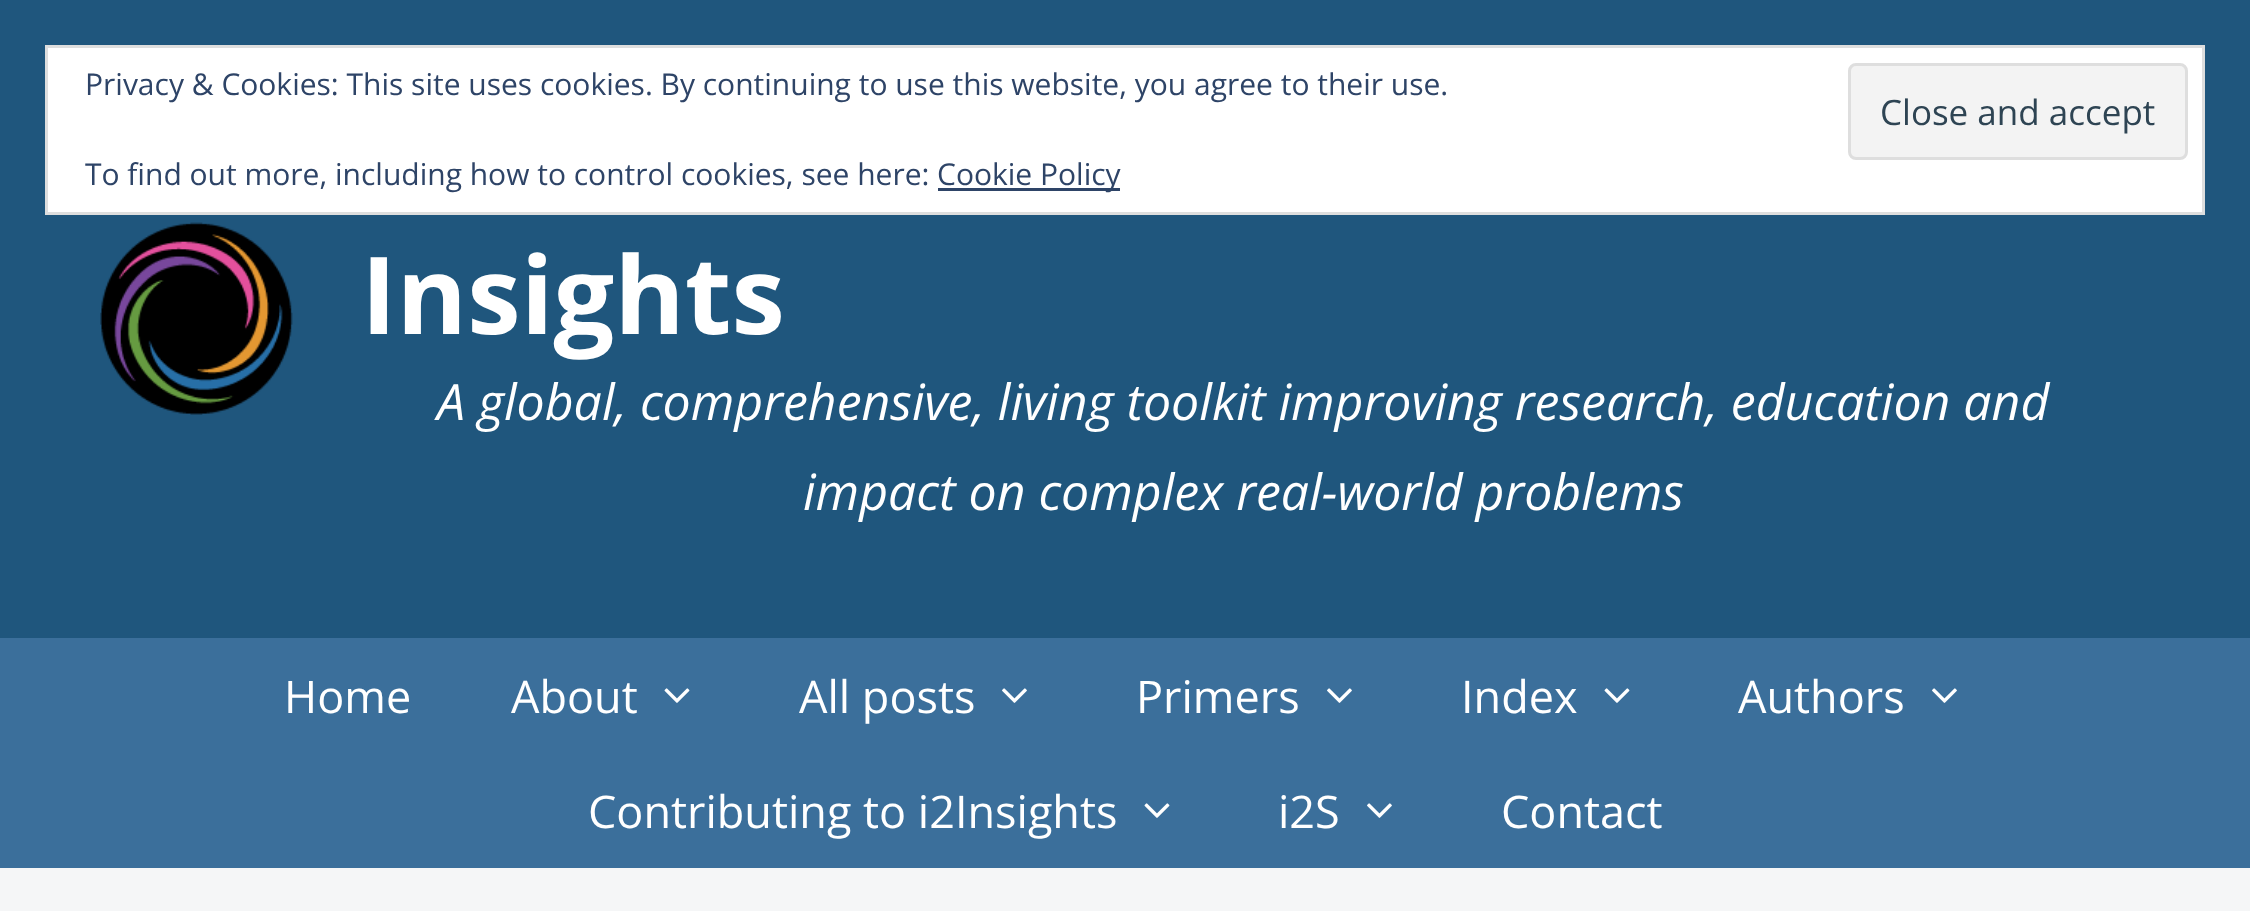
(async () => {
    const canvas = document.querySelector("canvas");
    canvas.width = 2250;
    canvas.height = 911;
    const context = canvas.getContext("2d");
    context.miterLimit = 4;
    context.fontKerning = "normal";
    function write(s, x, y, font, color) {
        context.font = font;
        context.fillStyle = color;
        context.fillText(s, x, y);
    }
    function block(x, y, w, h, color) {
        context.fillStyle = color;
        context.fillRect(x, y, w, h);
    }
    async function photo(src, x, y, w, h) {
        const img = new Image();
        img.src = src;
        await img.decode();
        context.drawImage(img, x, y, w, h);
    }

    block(0, 0, 2250, 911, "rgb(245, 246, 247)");
    block(0, 0, 2250, 638, "rgb(31, 86, 125)");
    context.fillStyle = "rgb(255, 255, 255)";
    context.beginPath();
    context.rect(46.5, 46.5, 2157, 167);
    context.fill();
    context.strokeStyle = "rgb(222, 222, 222)";
    context.lineWidth = 3;
    context.stroke();
    write("Privacy & Cookies: This site uses cookies. By continuing to use this website, you agree to their use.", 85, 95, "30px Open Sans", "rgb(46, 68, 103)");
    context.fillStyle = "rgb(243, 243, 243)";
    context.beginPath();
    context.roundRect(1849.5, 64.5, 337, 94, 6.5);
    context.fill();
    context.stroke();
    write("Close and accept", 1880, 125, "35px Open Sans", "rgb(46, 68, 83)");
    write("To find out more, including how to control cookies, see here:", 85, 185, "30px Open Sans", "rgb(46, 68, 103)");
    block(938, 188, 182, 3, "rgb(46, 68, 103)");
    write("Cookie Policy", 937, 185, "30px Open Sans", "rgb(46, 68, 103)");
    await photo("media/1.png", 100, 222, 193, 193);
    write("Insights", 361, 334, "bold 107.5px Open Sans", "rgb(255, 255, 255)");
    write("A global, comprehensive, living toolkit improving research, education and", 437, 420, "italic 50px Open Sans", "rgb(255, 255, 255)");
    write("impact on complex real-world problems", 803, 510, "italic 50px Open Sans", "rgb(255, 255, 255)");
    block(0, 638, 2250, 230, "rgb(59, 111, 155)");
    write("Home", 284, 713, "45px Open Sans", "rgb(255, 255, 255)");
    write("About", 511, 713, "45px Open Sans", "rgb(255, 255, 255)");
    await photo("media/2.png", 664, 688, 26, 15);
    write("All posts", 799, 713, "45px Open Sans", "rgb(255, 255, 255)");
    await photo("media/3.png", 1002, 688, 25, 15);
    write("Primers", 1136, 713, "45px Open Sans", "rgb(255, 255, 255)");
    await photo("media/3.png", 1327, 688, 25, 15);
    write("Index", 1461, 713, "45px Open Sans", "rgb(255, 255, 255)");
    await photo("media/2.png", 1604, 688, 26, 15);
    write("Authors", 1738, 713, "45px Open Sans", "rgb(255, 255, 255)");
    await photo("media/3.png", 1932, 688, 25, 15);
    write("Contributing to i2Insights", 588, 828, "45px Open Sans", "rgb(255, 255, 255)");
    await photo("media/2.png", 1144, 803, 26, 15);
    write("i2S", 1278, 828, "45px Open Sans", "rgb(255, 255, 255)");
    await photo("media/3.png", 1367, 803, 25, 15);
    write("Contact", 1501, 828, "45px Open Sans", "rgb(255, 255, 255)");
})();
